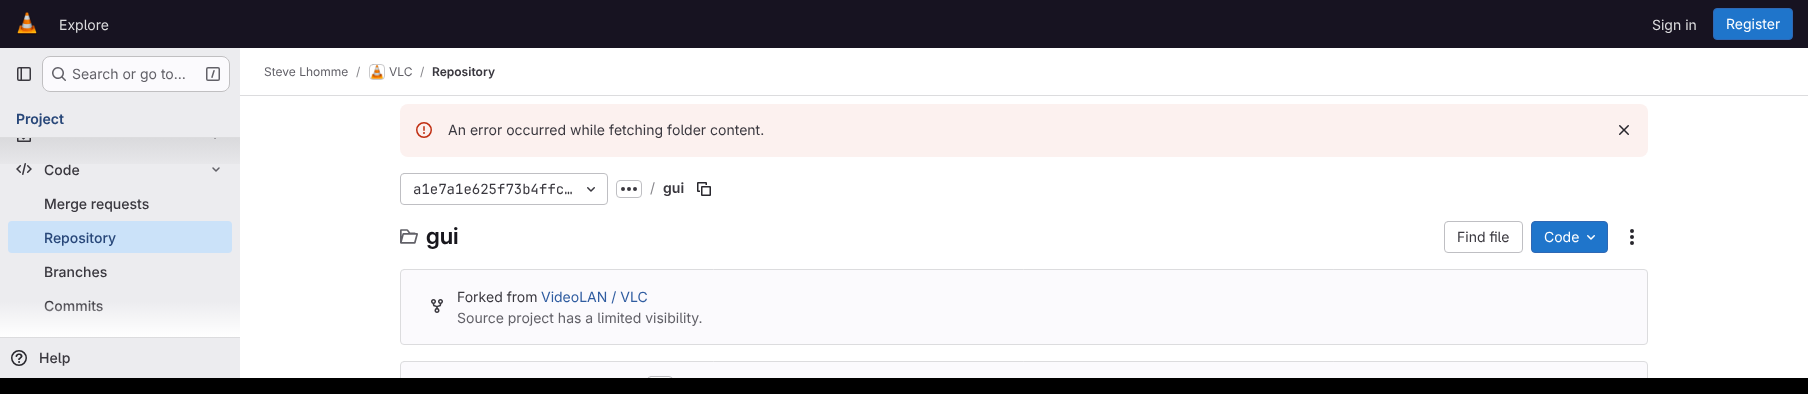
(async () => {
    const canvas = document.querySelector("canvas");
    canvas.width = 1808;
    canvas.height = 394;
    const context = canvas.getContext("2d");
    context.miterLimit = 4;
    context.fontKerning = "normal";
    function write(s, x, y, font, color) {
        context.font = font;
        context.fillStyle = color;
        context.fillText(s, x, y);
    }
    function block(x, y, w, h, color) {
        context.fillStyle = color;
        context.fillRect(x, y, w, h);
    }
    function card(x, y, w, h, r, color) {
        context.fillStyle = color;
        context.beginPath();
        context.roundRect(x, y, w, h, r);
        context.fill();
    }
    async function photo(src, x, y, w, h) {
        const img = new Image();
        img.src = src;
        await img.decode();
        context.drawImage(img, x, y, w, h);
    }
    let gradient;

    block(0, 0, 1808, 394, "rgb(255, 255, 255)");
    block(0, 0, 1808, 48, "rgb(23, 19, 33)");
    await photo("media/1.png", 17, 12, 20, 23);
    write("Explore", 59, 30, "14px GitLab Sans", "rgb(220, 220, 222)");
    write("Sign in", 1652, 30, "14px GitLab Sans", "rgb(220, 220, 222)");
    context.fillStyle = "rgb(31, 117, 203)";
    context.beginPath();
    context.roundRect(1713.5, 8.5, 79, 31, 3.5);
    context.fill();
    context.strokeStyle = "rgb(47, 104, 180)";
    context.stroke();
    write("Register", 1726, 29, "14px GitLab Sans", "rgb(255, 255, 255)");
    block(0, 48, 240, 330, "rgb(236, 236, 239)");
    await photo("media/2.png", 17, 67, 14, 14);
    card(42, 56, 188, 36, 8, "rgb(251, 250, 253)");
    context.beginPath();
    context.roundRect(42.5, 56.5, 187, 35, 7.5);
    context.strokeStyle = "rgba(5, 5, 6, 0.24)";
    context.stroke();
    await photo("media/3.png", 52, 67, 14, 14);
    write("Search or go to…", 72, 79, "14px GitLab Sans", "rgb(98, 97, 104)");
    await photo("media/4.png", 206, 67, 14, 14);
    write("Project", 16, 124, "600 14px 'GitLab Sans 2'", "rgb(40, 71, 121)");
    block(0, 137, 240, 1, "rgb(220, 220, 222)");
    block(0, 337, 240, 1, "rgb(220, 220, 222)");
    await photo("media/5.png", 17, 138, 14, 4);
    context.save();
    context.beginPath();
    context.rect(208, 138, 16, 5);
    context.clip();
    context.beginPath();
    context.moveTo(215, 132);
    context.lineTo(218, 135);
    context.lineTo(215, 138);
    context.strokeStyle = "rgb(98, 97, 104)";
    context.lineWidth = 1.5;
    context.lineCap = "round";
    context.lineJoin = "round";
    context.stroke();
    context.restore();
    await photo("media/6.png", 16, 163, 16, 12);
    gradient = context.createLinearGradient(120, 138, 120, 174);
    gradient.addColorStop(0, "rgba(5, 5, 6, 0.08)");
    gradient.addColorStop(1, "rgba(5, 5, 6, 0)");
    context.fillStyle = gradient;
    context.fillRect(0, 138, 240, 26);
    write("Code", 44, 175, "500 14px GitLab Sans", "rgb(58, 56, 63)");
    context.beginPath();
    context.moveTo(219, 168);
    context.lineTo(216, 171);
    context.lineTo(213, 168);
    context.strokeStyle = "rgb(98, 97, 104)";
    context.lineWidth = 1.5;
    context.lineCap = "round";
    context.lineJoin = "round";
    context.stroke();
    write("Merge requests", 44, 209, "500 14px GitLab Sans", "rgb(58, 56, 63)");
    card(8, 221, 224, 32, 4, "rgb(203, 226, 249)");
    write("Repository", 44, 243, "500 14px GitLab Sans", "rgb(40, 71, 121)");
    write("Branches", 44, 277, "500 14px GitLab Sans", "rgb(58, 56, 63)");
    write("Commits", 44, 311, "500 14px GitLab Sans", "rgb(58, 56, 63)");
    gradient = context.createLinearGradient(120, 301, 120, 337);
    gradient.addColorStop(0, "rgba(255, 255, 255, 0)");
    gradient.addColorStop(1, "rgb(255, 255, 255)");
    context.fillStyle = gradient;
    context.fillRect(0, 302, 240, 35);
    await photo("media/7.png", 11, 350, 16, 16);
    write("Help", 39, 363, "500 14px GitLab Sans", "rgb(58, 56, 63)");
    block(240, 95, 1568, 1, "rgb(220, 220, 222)");
    write("Steve Lhomme", 264, 76, "12px GitLab Sans", "rgb(98, 97, 104)");
    write("/", 356, 76, "12px GitLab Sans", "rgb(137, 136, 141)");
    context.beginPath();
    context.roundRect(369.5, 64.5, 15, 15, 3.5);
    context.strokeStyle = "rgb(220, 220, 222)";
    context.lineWidth = 1;
    context.lineJoin = "miter";
    context.stroke();
    await photo("media/8.png", 371, 65, 13, 14);
    context.beginPath();
    context.roundRect(369.5, 64.5, 15, 15, 3.5);
    context.strokeStyle = "rgba(5, 5, 6, 0.08)";
    context.stroke();
    write("VLC", 389, 76, "12px GitLab Sans", "rgb(98, 97, 104)");
    write("/", 420, 76, "12px GitLab Sans", "rgb(137, 136, 141)");
    write("Repository", 432, 76, "600 12px 'GitLab Sans 2'", "rgb(58, 56, 63)");
    card(400, 104, 1248, 53, 8, "rgb(252, 241, 239)");
    await photo("media/9.png", 416, 122, 16, 16);
    write("An error occurred while fetching folder content.", 448, 135, "14px GitLab Sans", "rgb(58, 56, 63)");
    await photo("media/10.png", 1619, 125, 10, 10);
    context.beginPath();
    context.roundRect(400.5, 173.5, 207, 31, 3.5);
    context.strokeStyle = "rgb(191, 191, 195)";
    context.stroke();
    write("a1e7a1e625f73b4ffc…", 413, 194, "14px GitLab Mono", "rgb(58, 56, 63)");
    await photo("media/11.png", 587, 187, 8, 5);
    context.beginPath();
    context.roundRect(616.5, 180.5, 25, 17, 3.5);
    context.stroke();
    await photo("media/12.png", 621, 187, 16, 4);
    write("/", 650, 193, "14px GitLab Sans", "rgb(137, 136, 141)");
    write("gui", 663, 193, "600 14px 'GitLab Sans 2'", "rgb(58, 56, 63)");
    await photo("media/13.png", 697, 182, 14, 14);
    await photo("media/14.png", 400, 229, 18, 15);
    write("gui", 426, 244, "600 23px GitLab Sans", "rgb(24, 23, 29)");
    context.beginPath();
    context.roundRect(1444.5, 221.5, 78, 31, 3.5);
    context.stroke();
    write("Find file", 1457, 242, "14px GitLab Sans", "rgb(58, 56, 63)");
    context.fillStyle = "rgb(31, 117, 203)";
    context.beginPath();
    context.roundRect(1531.5, 221.5, 76, 31, 3.5);
    context.fill();
    context.strokeStyle = "rgb(47, 104, 180)";
    context.stroke();
    write("Code", 1544, 242, "14px GitLab Sans", "rgb(255, 255, 255)");
    await photo("media/15.png", 1587, 235, 8, 5);
    await photo("media/16.png", 1630, 229, 4, 16);
    context.fillStyle = "rgb(251, 250, 253)";
    context.beginPath();
    context.roundRect(400.5, 269.5, 1247, 75, 3.5);
    context.fill();
    context.strokeStyle = "rgb(220, 220, 222)";
    context.stroke();
    await photo("media/17.png", 431, 299, 12, 14);
    write("Forked from", 457, 302, "14px GitLab Sans", "rgb(58, 56, 63)");
    write("VideoLAN / VLC", 541, 302, "14px GitLab Sans", "rgb(47, 92, 160)");
    write("Source project has a limited visibility.", 457, 323, "14px GitLab Sans", "rgb(98, 97, 104)");
    context.fillStyle = "rgb(251, 250, 253)";
    context.beginPath();
    context.roundRect(400.5, 361.5, 1247, 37, 3.5);
    context.fill();
    context.stroke();
    context.fillStyle = "rgb(255, 255, 255)";
    context.beginPath();
    context.roundRect(647.5, 376.5, 25, 17, 3.5);
    context.fill();
    context.strokeStyle = "rgb(191, 191, 195)";
    context.stroke();
    block(0, 378, 1808, 16, "rgb(0, 0, 0)");
})();
